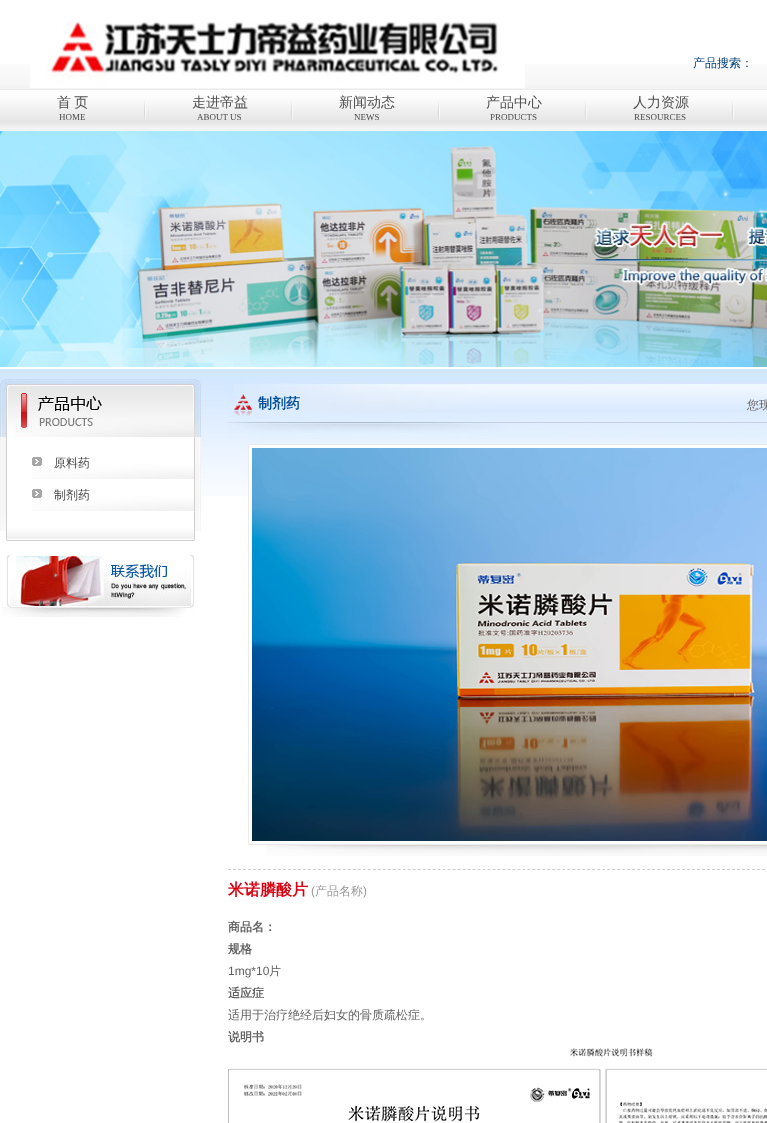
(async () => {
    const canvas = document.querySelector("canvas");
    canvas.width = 767;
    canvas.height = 1123;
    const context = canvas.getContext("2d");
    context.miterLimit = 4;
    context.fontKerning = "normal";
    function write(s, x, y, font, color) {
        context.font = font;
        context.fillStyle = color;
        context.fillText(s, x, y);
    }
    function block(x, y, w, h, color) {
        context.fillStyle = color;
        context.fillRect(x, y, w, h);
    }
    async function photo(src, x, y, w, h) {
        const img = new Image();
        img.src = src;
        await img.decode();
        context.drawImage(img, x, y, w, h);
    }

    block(0, 0, 767, 1123, "rgb(255, 255, 255)");
    await photo("media/1.png", 0, 64, 767, 67);
    await photo("media/2.png", 30, 22, 495, 66);
    write("产品搜索：", 693, 67, "500 12px WenQuanYi Zen Hei", "rgb(0, 63, 123)");
    await photo("media/3.png", 144, 101, 2, 30);
    context.wordSpacing = "-1px";
    write("首 页", 57, 107, "500 14px WenQuanYi Zen Hei", "rgb(78, 78, 78)");
    context.wordSpacing = "0px";
    write("HOME", 59, 120, "9px Liberation Serif", "rgb(78, 78, 78)");
    await photo("media/3.png", 291, 101, 2, 30);
    write("走进帝益", 192, 107, "500 14px WenQuanYi Zen Hei", "rgb(78, 78, 78)");
    write("ABOUT US", 197, 120, "9px Liberation Serif", "rgb(78, 78, 78)");
    await photo("media/3.png", 438, 101, 2, 30);
    write("新闻动态", 339, 107, "500 14px WenQuanYi Zen Hei", "rgb(78, 78, 78)");
    write("NEWS", 354, 120, "9px Liberation Serif", "rgb(78, 78, 78)");
    await photo("media/3.png", 585, 101, 2, 30);
    write("产品中心", 486, 107, "500 14px WenQuanYi Zen Hei", "rgb(78, 78, 78)");
    write("PRODUCTS", 490, 120, "9px Liberation Serif", "rgb(78, 78, 78)");
    await photo("media/3.png", 732, 101, 2, 30);
    write("人力资源", 633, 107, "500 14px WenQuanYi Zen Hei", "rgb(78, 78, 78)");
    write("RESOURCES", 634, 120, "9px Liberation Serif", "rgb(78, 78, 78)");
    await photo("media/4.png", 0, 131, 767, 236);
    await photo("media/5.png", 0, 369, 767, 127);
    await photo("media/6.png", 0, 379, 201, 58);
    await photo("media/7.png", 0, 437, 201, 74);
    await photo("media/8.png", 32, 457, 162, 22);
    write("原料药", 54, 467, "500 12px WenQuanYi Zen Hei", "rgb(69, 69, 69)");
    await photo("media/8.png", 32, 489, 162, 22);
    write("制剂药", 54, 499, "500 12px WenQuanYi Zen Hei", "rgb(69, 69, 69)");
    await photo("media/9.png", 0, 511, 201, 30);
    await photo("media/10.png", 1, 555, 194, 62);
    await photo("media/11.png", 228, 380, 539, 56);
    write("制剂药", 258, 408, "bold 14px WenQuanYi Zen Hei", "rgb(1, 78, 152)");
    write("您现", 747, 409, "500 12px WenQuanYi Zen Hei", "rgb(97, 97, 97)");
    block(249, 445, 518, 51, "rgb(255, 255, 255)");
    context.strokeStyle = "rgb(235, 235, 235)";
    context.strokeRect(248.5, 444.5, 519, 400);
    await photo("media/12.png", 252, 448, 515, 393);
    await photo("media/13.png", 266, 845, 501, 11);
    context.beginPath();
    context.moveTo(228, 869.5);
    context.lineTo(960, 869.5);
    context.strokeStyle = "rgb(204, 204, 204)";
    context.setLineDash([3, 1.99]);
    context.stroke();
    write("米诺膦酸片", 228, 895, "bold 16px WenQuanYi Zen Hei", "rgb(214, 0, 16)");
    write("(", 311, 895, "12px Liberation Sans", "rgb(153, 153, 153)");
    write("产品名称", 315, 895, "500 12px WenQuanYi Zen Hei", "rgb(153, 153, 153)");
    write(")", 363, 895, "12px Liberation Sans", "rgb(153, 153, 153)");
    write("商品名：", 228, 931, "bold 12px WenQuanYi Zen Hei", "rgb(97, 97, 97)");
    write("规格", 228, 953, "bold 12px WenQuanYi Zen Hei", "rgb(97, 97, 97)");
    write("1mg*10", 228, 975, "12px Liberation Sans", "rgb(97, 97, 97)");
    write("片", 269, 975, "500 12px WenQuanYi Zen Hei", "rgb(97, 97, 97)");
    write("适应症", 228, 997, "bold 12px WenQuanYi Zen Hei", "rgb(97, 97, 97)");
    write("适用于治疗绝经后妇女的骨质疏松症。", 228, 1019, "500 12px WenQuanYi Zen Hei", "rgb(97, 97, 97)");
    write("说明书", 228, 1041, "bold 12px WenQuanYi Zen Hei", "rgb(97, 97, 97)");
    await photo("media/14.png", 228, 1048, 539, 75);
})();
